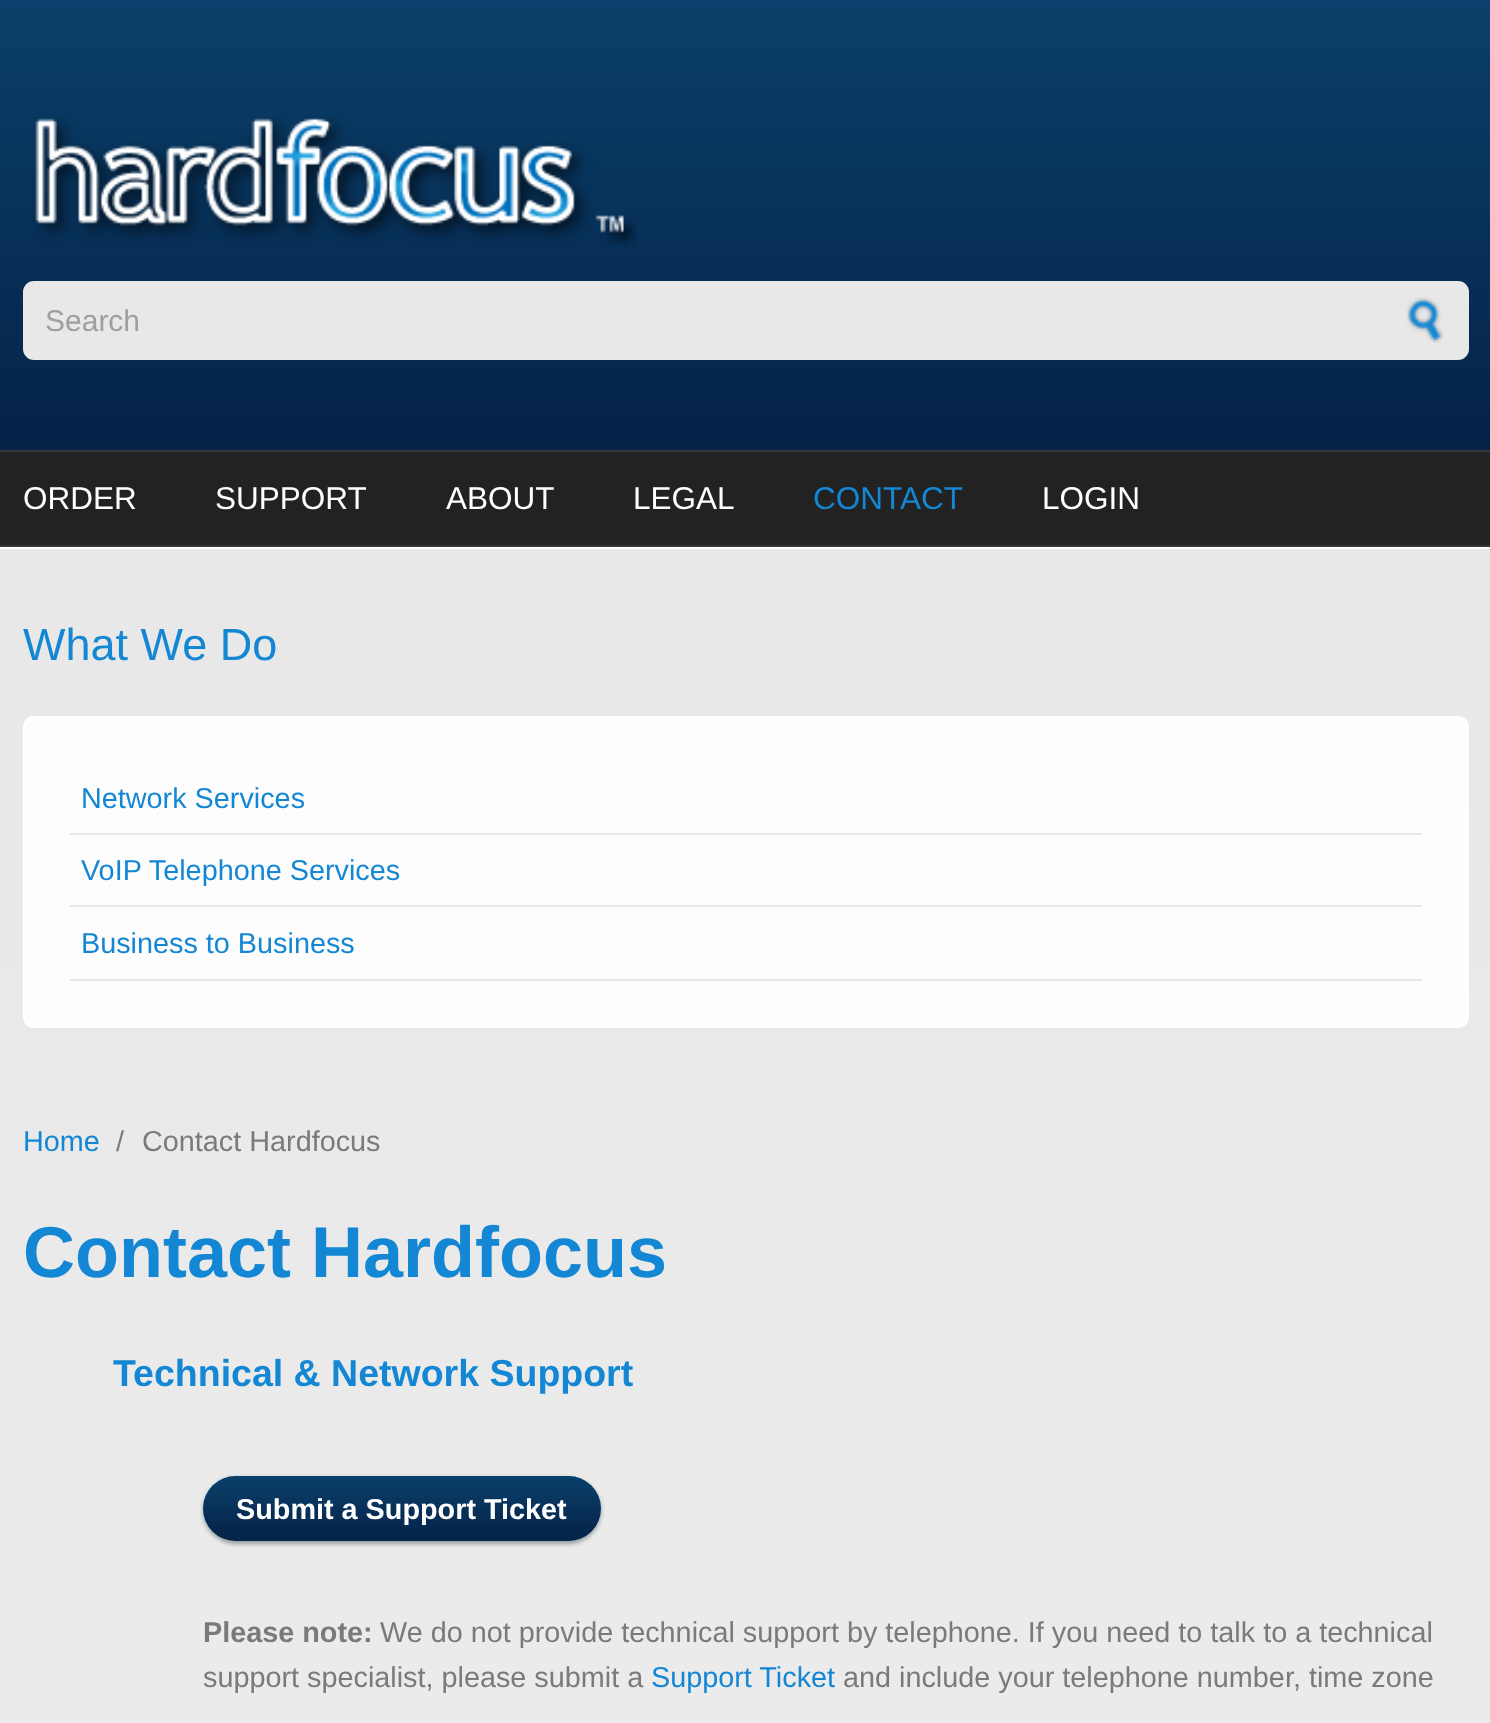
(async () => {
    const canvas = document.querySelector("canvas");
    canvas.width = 1490;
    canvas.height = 1723;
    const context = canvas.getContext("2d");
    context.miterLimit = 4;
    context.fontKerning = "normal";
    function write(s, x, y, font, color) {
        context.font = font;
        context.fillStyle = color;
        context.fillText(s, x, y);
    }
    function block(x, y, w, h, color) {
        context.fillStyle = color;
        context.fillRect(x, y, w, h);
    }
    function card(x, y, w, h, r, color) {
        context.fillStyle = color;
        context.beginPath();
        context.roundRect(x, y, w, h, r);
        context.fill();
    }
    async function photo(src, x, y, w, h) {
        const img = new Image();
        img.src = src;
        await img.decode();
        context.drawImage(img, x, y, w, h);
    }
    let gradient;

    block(0, 0, 1490, 1723, "rgb(255, 255, 255)");
    gradient = context.createLinearGradient(746, 0, 746, 450);
    gradient.addColorStop(0, "rgb(10, 64, 107)");
    gradient.addColorStop(1, "rgb(5, 34, 71)");
    context.fillStyle = gradient;
    context.fillRect(0, 0, 1490, 450);
    await photo("media/1.png", 33, 116, 604, 131);
    card(23, 281, 1446, 79, 11, "rgb(232, 232, 232)");
    write("Search", 45, 331, "30px Liberation Sans", "rgb(159, 159, 159)");
    await photo("media/2.png", 1406, 297, 37, 46);
    block(0, 452, 1490, 93, "rgb(34, 34, 34)");
    block(0, 450, 1490, 2, "rgb(53, 53, 53)");
    block(0, 545, 1490, 2, "rgb(53, 53, 53)");
    write("ORDER", 23, 509, "31.5px Liberation Sans", "rgb(254, 254, 254)");
    write("SUPPORT", 215, 509, "31.5px Liberation Sans", "rgb(254, 254, 254)");
    write("ABOUT", 446, 509, "31.5px Liberation Sans", "rgb(254, 254, 254)");
    write("LEGAL", 633, 509, "31.5px Liberation Sans", "rgb(254, 254, 254)");
    write("CONTACT", 813, 509, "31.5px Liberation Sans", "rgb(20, 135, 212)");
    write("LOGIN", 1042, 509, "31.5px Liberation Sans", "rgb(254, 254, 254)");
    block(0, 547, 1490, 2, "rgb(252, 252, 252)");
    gradient = context.createLinearGradient(746, 549, 746, 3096);
    gradient.addColorStop(0, "rgb(232, 232, 232)");
    gradient.addColorStop(1, "rgb(239, 239, 239)");
    context.fillStyle = gradient;
    context.fillRect(0, 549, 1490, 1174);
    write("What We Do", 23, 660, "45px Liberation Sans", "rgb(20, 135, 212)");
    context.fillStyle = "rgb(253, 253, 253)";
    context.beginPath();
    context.roundRect(24, 717, 1444, 310, 10);
    context.fill();
    context.strokeStyle = "rgb(255, 255, 255)";
    context.lineWidth = 2;
    context.stroke();
    block(70, 833, 1352, 2, "rgb(231, 231, 231)");
    write("Network Services", 81, 808, "28.8px Liberation Sans", "rgb(20, 135, 212)");
    block(70, 905, 1352, 2, "rgb(231, 231, 231)");
    write("VoIP Telephone Services", 81, 880, "28.8px Liberation Sans", "rgb(20, 135, 212)");
    block(70, 979, 1352, 2, "rgb(231, 231, 231)");
    write("Business to Business", 81, 953, "28.8px Liberation Sans", "rgb(20, 135, 212)");
    write("Home", 23, 1151, "28.8px Liberation Sans", "rgb(20, 135, 212)");
    write("/", 116, 1151, "28.8px Liberation Sans", "rgb(122, 122, 122)");
    write("Contact Hardfocus", 142, 1151, "28.8px Liberation Sans", "rgb(122, 122, 122)");
    write("Contact Hardfocus", 23, 1277, "bold 72px Liberation Sans", "rgb(20, 135, 212)");
    write("Technical & Network Support", 113, 1386, "bold 37.5px Liberation Sans", "rgb(20, 135, 212)");
    context.fillStyle = "rgb(147, 157, 162)";
    context.filter = "blur(2px)";
    context.beginPath();
    context.roundRect(203, 1478, 398, 66, 33);
    context.fill();
    context.filter = "none";
    gradient = context.createLinearGradient(402, 1476, 402, 1541);
    gradient.addColorStop(0, "rgb(10, 64, 107)");
    gradient.addColorStop(1, "rgb(5, 34, 71)");
    context.fillStyle = gradient;
    context.beginPath();
    context.roundRect(203, 1476, 398, 65, 32.5);
    context.fill();
    write("Submit a Support Ticket", 236, 1519, "bold 28.8px Liberation Sans", "rgb(254, 254, 254)");
    write("Please note:", 203, 1642, "bold 28.8px Liberation Sans", "rgb(122, 122, 122)");
    write("We do not provide technical support by telephone. If you need to talk to a technical", 380, 1642, "28.8px Liberation Sans", "rgb(122, 122, 122)");
    write("support specialist, please submit a", 203, 1687, "28.8px Liberation Sans", "rgb(122, 122, 122)");
    write("Support Ticket", 651, 1687, "28.8px Liberation Sans", "rgb(20, 135, 212)");
    write("and include your telephone number, time zone", 843, 1687, "28.8px Liberation Sans", "rgb(122, 122, 122)");
})();
